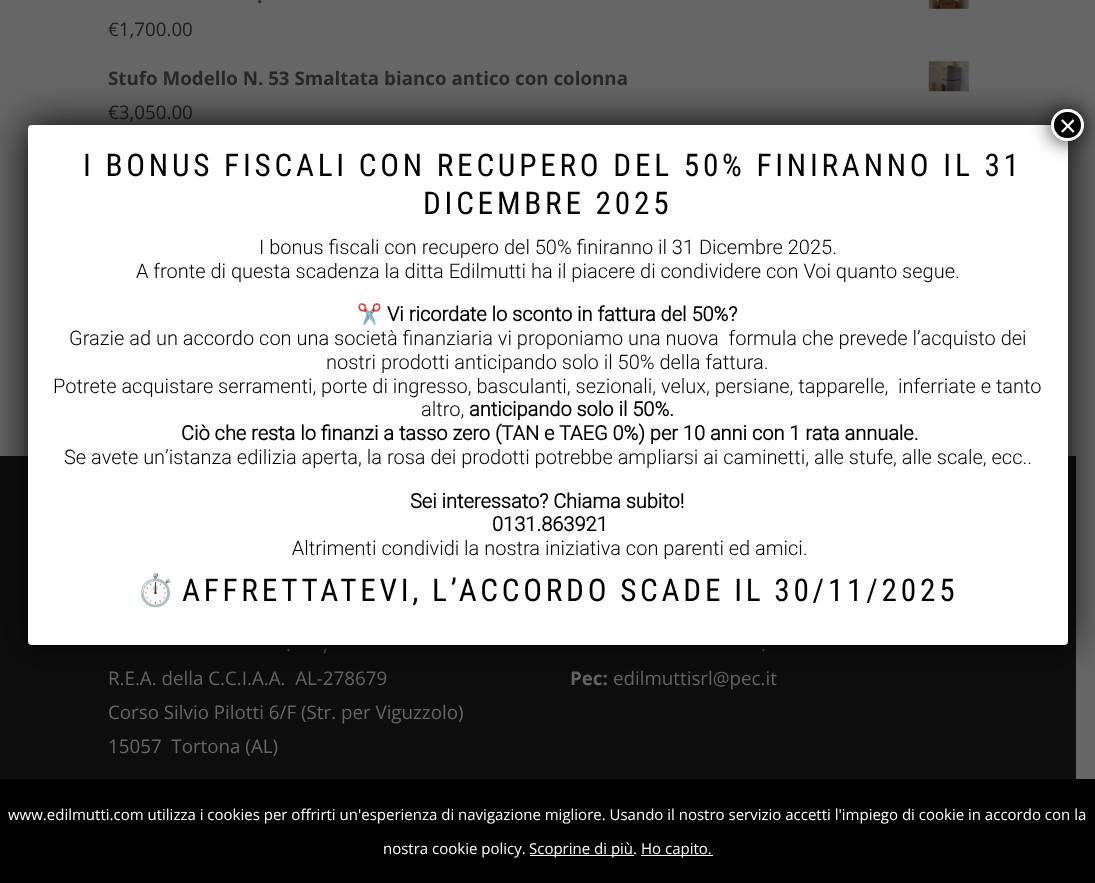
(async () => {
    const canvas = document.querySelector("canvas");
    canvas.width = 1095;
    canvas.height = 883;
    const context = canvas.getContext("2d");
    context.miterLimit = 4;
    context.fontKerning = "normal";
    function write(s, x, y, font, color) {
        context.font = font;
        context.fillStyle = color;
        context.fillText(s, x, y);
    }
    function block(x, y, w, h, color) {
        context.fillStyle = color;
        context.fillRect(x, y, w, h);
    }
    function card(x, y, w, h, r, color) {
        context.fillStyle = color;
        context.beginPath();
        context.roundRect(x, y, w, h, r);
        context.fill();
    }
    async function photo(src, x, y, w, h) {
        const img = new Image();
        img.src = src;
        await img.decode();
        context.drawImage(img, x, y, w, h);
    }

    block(0, 0, 1095, 883, "rgb(102, 102, 102)");
    write(".", 257, 3, "bold 18.75px Open Sans", "rgb(41, 41, 41)");
    await photo("media/1.png", 928, 0, 41, 9);
    write("€1,700.00", 108, 36, "18.75px Open Sans", "rgb(30, 30, 30)");
    write("Stufo Modello N. 53 Smaltata bianco antico con colonna", 108, 85, "bold 18.75px Open Sans", "rgb(41, 41, 41)");
    await photo("media/2.png", 928, 61, 41, 31);
    write("€3,050.00", 108, 119, "18.75px Open Sans", "rgb(30, 30, 30)");
    block(0, 456, 1076, 323, "rgb(14, 14, 14)");
    write(".", 286, 651, "18.75px Open Sans", "rgb(102, 102, 102)");
    write(",", 323, 651, "18.75px Open Sans", "rgb(102, 102, 102)");
    write("R.E.A. della C.C.I.A.A.  AL-278679", 108, 685, "18.75px Open Sans", "rgb(102, 102, 102)");
    write("Corso Silvio Pilotti 6/F (Str. per Viguzzolo)", 108, 719, "18.75px Open Sans", "rgb(102, 102, 102)");
    write("15057  Tortona (AL)", 108, 753, "18.75px Open Sans", "rgb(102, 102, 102)");
    write(".", 761, 651, "18.75px Open Sans", "rgb(102, 102, 102)");
    write("Pec:", 570, 685, "bold 18.75px Open Sans", "rgb(102, 102, 102)");
    write("edilmuttisrl@pec.it", 613, 685, "18.75px Open Sans", "rgb(102, 102, 102)");
    context.fillStyle = "rgb(2, 2, 2)";
    context.filter = "blur(19px)";
    context.beginPath();
    context.roundRect(28, 125, 1040, 520, 4);
    context.fill();
    context.filter = "none";
    card(28, 125, 1040, 520, 4, "rgb(255, 255, 255)");
    context.fillStyle = "rgba(2, 2, 2, 0.75)";
    context.filter = "blur(9.5px)";
    context.beginPath();
    context.roundRect(1050, 108, 35, 35, 17.5);
    context.fill();
    context.filter = "none";
    context.fillStyle = "rgb(0, 0, 0)";
    context.beginPath();
    context.roundRect(1052.5, 110.5, 30, 29, 14.5);
    context.fill();
    context.strokeStyle = "rgb(255, 255, 255)";
    context.lineWidth = 3;
    context.stroke();
    write("×", 1059, 136, "30px Liberation Sans", "rgb(255, 255, 255)");
    context.letterSpacing = "3.75px";
    write("I BONUS FISCALI CON RECUPERO DEL 50% FINIRANNO IL 31", 83, 176, "31.25px Roboto Condensed", "rgb(0, 0, 0)");
    write("DICEMBRE 2025", 423, 214, "31.25px Roboto Condensed", "rgb(0, 0, 0)");
    context.letterSpacing = "0px";
    write("I bonus fiscali con recupero del 50% finiranno il 31 Dicembre 2025.", 259, 254, "300 20px Roboto", "rgb(0, 0, 0)");
    write("A fronte di questa scadenza la ditta Edilmutti ha il piacere di condividere con Voi quanto segue.", 136, 278, "300 20px Roboto", "rgb(0, 0, 0)");
    write("✂️", 357, 321, "bold 20px Noto Color Emoji", "rgb(0, 0, 0)");
    write("Vi ricordate lo sconto in fattura del 50%?", 387, 321, "bold 20px Roboto", "rgb(0, 0, 0)");
    write("Grazie ad un accordo con una società finanziaria vi proponiamo una nuova  formula che prevede l’acquisto dei", 69, 345, "300 20px Roboto", "rgb(0, 0, 0)");
    write("nostri prodotti anticipando solo il 50% della fattura.", 326, 369, "300 20px Roboto", "rgb(0, 0, 0)");
    write("Potrete acquistare serramenti, porte di ingresso, basculanti, sezionali, velux, persiane, tapparelle,  inferriate e tanto", 53, 393, "300 20px Roboto", "rgb(0, 0, 0)");
    write("altro,", 421, 416, "300 20px Roboto", "rgb(0, 0, 0)");
    write("anticipando solo il 50%.", 469, 416, "bold 20px Roboto", "rgb(0, 0, 0)");
    write("Ciò che resta lo finanzi a tasso zero (TAN e TAEG 0%) per 10 anni con 1 rata annuale.", 181, 440, "bold 20px Roboto", "rgb(0, 0, 0)");
    write("Se avete un’istanza edilizia aperta, la rosa dei prodotti potrebbe ampliarsi ai caminetti, alle stufe, alle scale, ecc..", 64, 464, "300 20px Roboto", "rgb(0, 0, 0)");
    write("Sei interessato? Chiama subito!", 410, 508, "bold 20px Roboto", "rgb(0, 0, 0)");
    write("0131.863921", 492, 531, "bold 20px Roboto", "rgb(0, 0, 0)");
    write("️ Altrimenti condividi la nostra iniziativa con parenti ed amici.", 287, 555, "300 20px Roboto", "rgb(0, 0, 0)");
    context.letterSpacing = "3.75px";
    write("⏱️", 136, 601, "31.25px Noto Color Emoji", "rgb(0, 0, 0)");
    context.wordSpacing = "-1px";
    write("AFFRETTATEVI, L’ACCORDO SCADE IL 30/11/2025", 182, 601, "31.25px Roboto Condensed", "rgb(0, 0, 0)");
    block(0, 779, 1095, 104, "rgb(0, 0, 0)");
    context.letterSpacing = "0px";
    context.wordSpacing = "0px";
    write("www.edilmutti.com utilizza i cookies per offrirti un'esperienza di navigazione migliore. Usando il nostro servizio accetti l'impiego di cookie in accordo con la", 8, 820, "15px Open Sans", "rgb(255, 255, 255)");
    write("nostra cookie policy.", 383, 854, "15px Open Sans", "rgb(255, 255, 255)");
    block(530, 855, 104, 1, "rgb(255, 255, 255)");
    write("Scoprine di più.", 529, 854, "15px Open Sans", "rgb(255, 255, 255)");
    block(641, 855, 72, 1, "rgb(255, 255, 255)");
    write("Ho capito.", 641, 854, "15px Open Sans", "rgb(255, 255, 255)");
})();
